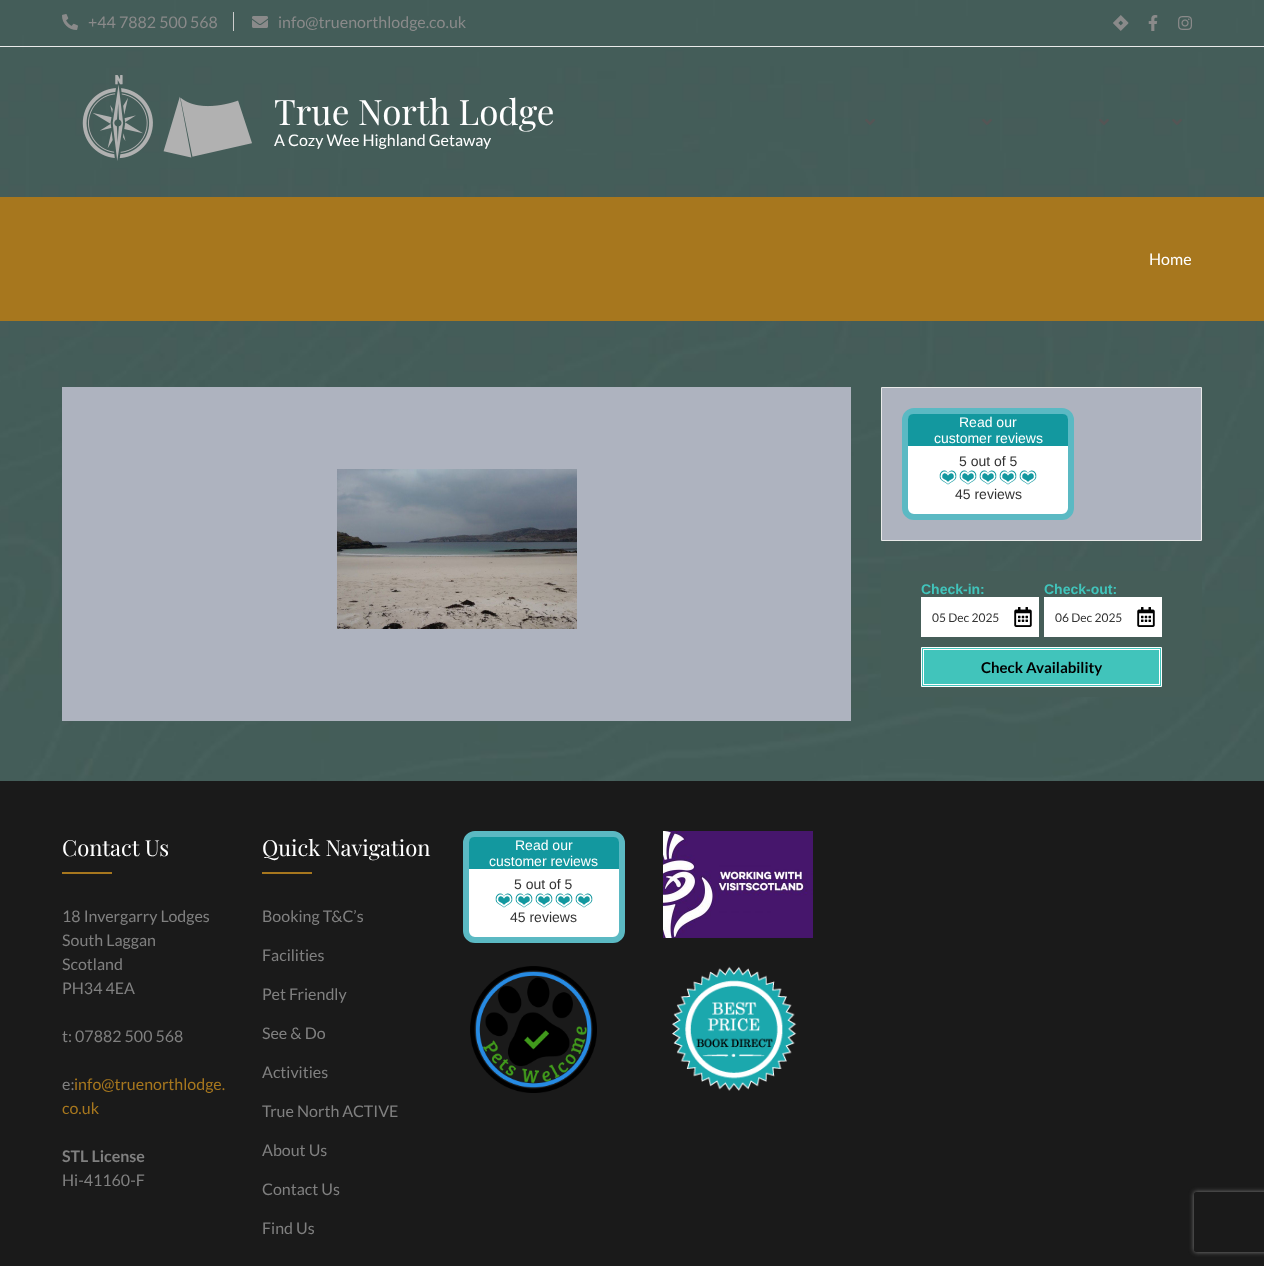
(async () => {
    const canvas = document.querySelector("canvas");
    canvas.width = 1264;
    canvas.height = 1266;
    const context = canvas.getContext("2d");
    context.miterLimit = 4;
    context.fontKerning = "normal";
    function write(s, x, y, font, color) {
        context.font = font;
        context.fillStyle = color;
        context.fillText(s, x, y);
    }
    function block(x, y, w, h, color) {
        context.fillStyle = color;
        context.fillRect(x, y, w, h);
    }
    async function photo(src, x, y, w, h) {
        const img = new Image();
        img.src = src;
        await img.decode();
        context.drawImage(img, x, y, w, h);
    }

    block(0, 0, 1264, 1266, "rgb(255, 255, 255)");
    await photo("media/1.png", 0, 0, 1264, 781);
    block(0, 46, 1264, 1, "rgb(235, 235, 235)");
    block(233, 12, 1, 19, "rgb(205, 205, 205)");
    await photo("media/2.png", 62, 14, 16, 16);
    write("+44 7882 500 568", 88, 28, "16px Lato", "rgb(138, 138, 138)");
    await photo("media/3.png", 252, 16, 16, 12);
    write("info@truenorthlodge.co.uk", 278, 28, "16px Lato", "rgb(138, 138, 138)");
    await photo("media/4.png", 1113, 15, 16, 16);
    await photo("media/5.png", 1148, 15, 10, 16);
    await photo("media/6.png", 1178, 16, 14, 14);
    await photo("media/7.png", 82, 75, 170, 86);
    write("True North Lodge", 274, 125, "35px Playfair Display", "rgb(255, 255, 255)");
    write("A Cozy Wee Highland Getaway", 274, 146, "16px Lato", "rgb(255, 255, 255)");
    await photo("media/8.png", 865, 119, 10, 6);
    await photo("media/9.png", 982, 119, 10, 6);
    await photo("media/10.png", 1099, 119, 10, 6);
    await photo("media/11.png", 1172, 119, 10, 6);
    block(0, 197, 1264, 124, "rgb(167, 119, 30)");
    write("Home", 1149, 265, "16px Lato", "rgb(255, 255, 255)");
    block(62, 387, 789, 334, "rgb(174, 179, 191)");
    await photo("media/12.png", 337, 469, 240, 160);
    context.beginPath();
    context.rect(881.5, 387.5, 320, 153);
    context.fill();
    context.strokeStyle = "rgb(233, 233, 233)";
    context.stroke();
    context.fillStyle = "rgb(255, 255, 255)";
    context.beginPath();
    context.roundRect(905, 411, 166, 106, 9);
    context.fill();
    context.strokeStyle = "rgb(91, 185, 195)";
    context.lineWidth = 6;
    context.stroke();
    context.fillStyle = "rgb(19, 152, 159)";
    context.beginPath();
    context.roundRect(908, 414, 160, 32, [5, 5, 0, 0]);
    context.fill();
    write("Read our", 959, 427, "14px Liberation Sans", "rgb(255, 255, 255)");
    write("customer reviews", 934, 443, "14px Liberation Sans", "rgb(255, 255, 255)");
    write("5 out of 5", 959, 466, "14px Liberation Sans", "rgb(51, 51, 51)");
    await photo("media/13.png", 1037, 469, 2, 17);
    block(939, 470, 98, 15, "rgb(19, 152, 159)");
    await photo("media/14.png", 937, 469, 100, 17);
    write("45 reviews", 955, 499, "14px Liberation Sans", "rgb(51, 51, 51)");
    block(881, 571, 321, 126, "rgb(69, 93, 88)");
    write("Check-in:", 921, 594, "bold 14px Liberation Sans", "rgb(65, 196, 187)");
    block(921, 597, 118, 40, "rgb(255, 255, 255)");
    await photo("media/15.png", 1014, 607, 18, 20);
    write("05 Dec 2025", 932, 622, "12px Lato", "rgb(51, 51, 51)");
    write("Check-out:", 1044, 594, "bold 14px Liberation Sans", "rgb(65, 196, 187)");
    block(1044, 597, 118, 40, "rgb(255, 255, 255)");
    await photo("media/15.png", 1137, 607, 18, 20);
    write("06 Dec 2025", 1055, 622, "12px Lato", "rgb(51, 51, 51)");
    context.fillStyle = "rgb(65, 196, 187)";
    context.beginPath();
    context.rect(921.5, 647.5, 240, 39);
    context.fill();
    context.strokeStyle = "rgb(255, 255, 255)";
    context.lineWidth = 1;
    context.stroke();
    context.strokeRect(923.5, 649.5, 236, 35);
    write("Check Availability", 981, 673, "bold 15px Lato", "rgb(0, 0, 0)");
    block(0, 781, 1264, 485, "rgb(26, 26, 26)");
    write("Contact Us", 62, 856, "22px Playfair Display", "rgb(255, 255, 255)");
    block(62, 872, 50, 2, "rgb(167, 119, 30)");
    write("18 Invergarry Lodges", 62, 922, "16px Lato", "rgb(128, 128, 128)");
    write("South Laggan", 62, 946, "16px Lato", "rgb(128, 128, 128)");
    write("Scotland", 62, 970, "16px Lato", "rgb(128, 128, 128)");
    write("PH34 4EA", 62, 994, "16px Lato", "rgb(128, 128, 128)");
    write("t: 07882 500 568", 62, 1042, "16px Lato", "rgb(128, 128, 128)");
    write("e:", 62, 1090, "16px Lato", "rgb(128, 128, 128)");
    write("info@truenorthlodge.", 74, 1090, "16px Lato", "rgb(167, 119, 30)");
    write("co.uk", 62, 1114, "16px Lato", "rgb(167, 119, 30)");
    write("STL License", 62, 1162, "bold 16px Lato", "rgb(128, 128, 128)");
    write("Hi-41160-F", 62, 1186, "16px Lato", "rgb(128, 128, 128)");
    write("Quick Navigation", 262, 856, "22px Playfair Display", "rgb(255, 255, 255)");
    block(262, 872, 50, 2, "rgb(167, 119, 30)");
    write("Booking T&C’s", 262, 922, "16px Lato", "rgb(128, 128, 128)");
    write("Facilities", 262, 961, "16px Lato", "rgb(128, 128, 128)");
    write("Pet Friendly", 262, 1000, "16px Lato", "rgb(128, 128, 128)");
    write("See & Do", 262, 1039, "16px Lato", "rgb(128, 128, 128)");
    write("Activities", 262, 1078, "16px Lato", "rgb(128, 128, 128)");
    write("True North ACTIVE", 262, 1117, "16px Lato", "rgb(128, 128, 128)");
    write("About Us", 262, 1156, "16px Lato", "rgb(128, 128, 128)");
    write("Contact Us", 262, 1195, "16px Lato", "rgb(128, 128, 128)");
    write("Find Us", 262, 1234, "16px Lato", "rgb(128, 128, 128)");
    context.fillStyle = "rgb(255, 255, 255)";
    context.beginPath();
    context.roundRect(466, 834, 156, 106, 9);
    context.fill();
    context.strokeStyle = "rgb(91, 185, 195)";
    context.lineWidth = 6;
    context.stroke();
    context.fillStyle = "rgb(19, 152, 159)";
    context.beginPath();
    context.roundRect(469, 837, 150, 32, [5, 5, 0, 0]);
    context.fill();
    write("Read our", 515, 850, "14px Liberation Sans", "rgb(255, 255, 255)");
    write("customer reviews", 489, 866, "14px Liberation Sans", "rgb(255, 255, 255)");
    write("5 out of 5", 514, 889, "14px Liberation Sans", "rgb(51, 51, 51)");
    await photo("media/13.png", 593, 892, 2, 17);
    block(495, 893, 98, 15, "rgb(19, 152, 159)");
    await photo("media/14.png", 493, 892, 100, 17);
    write("45 reviews", 510, 922, "14px Liberation Sans", "rgb(51, 51, 51)");
    await photo("media/16.png", 470, 966, 127, 127);
    await photo("media/17.png", 663, 831, 150, 107);
    await photo("media/18.png", 672, 966, 125, 125);
    context.save();
    context.beginPath();
    context.moveTo(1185, 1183);
    context.lineTo(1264, 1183);
    context.lineTo(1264, 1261);
    context.lineTo(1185, 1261);
    context.closePath();
    context.moveTo(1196, 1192);
    context.lineTo(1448, 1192);
    context.bezierCurveTo(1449, 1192, 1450, 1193, 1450, 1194);
    context.lineTo(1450, 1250);
    context.bezierCurveTo(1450, 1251, 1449, 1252, 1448, 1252);
    context.lineTo(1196, 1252);
    context.bezierCurveTo(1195, 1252, 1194, 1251, 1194, 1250);
    context.lineTo(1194, 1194);
    context.bezierCurveTo(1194, 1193, 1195, 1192, 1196, 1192);
    context.closePath();
    context.clip("evenodd");
    context.fillStyle = "rgb(128, 128, 128)";
    context.filter = "blur(2.5px)";
    context.beginPath();
    context.roundRect(1194, 1192, 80, 60, 2);
    context.fill();
    context.filter = "none";
    context.restore();
})();
